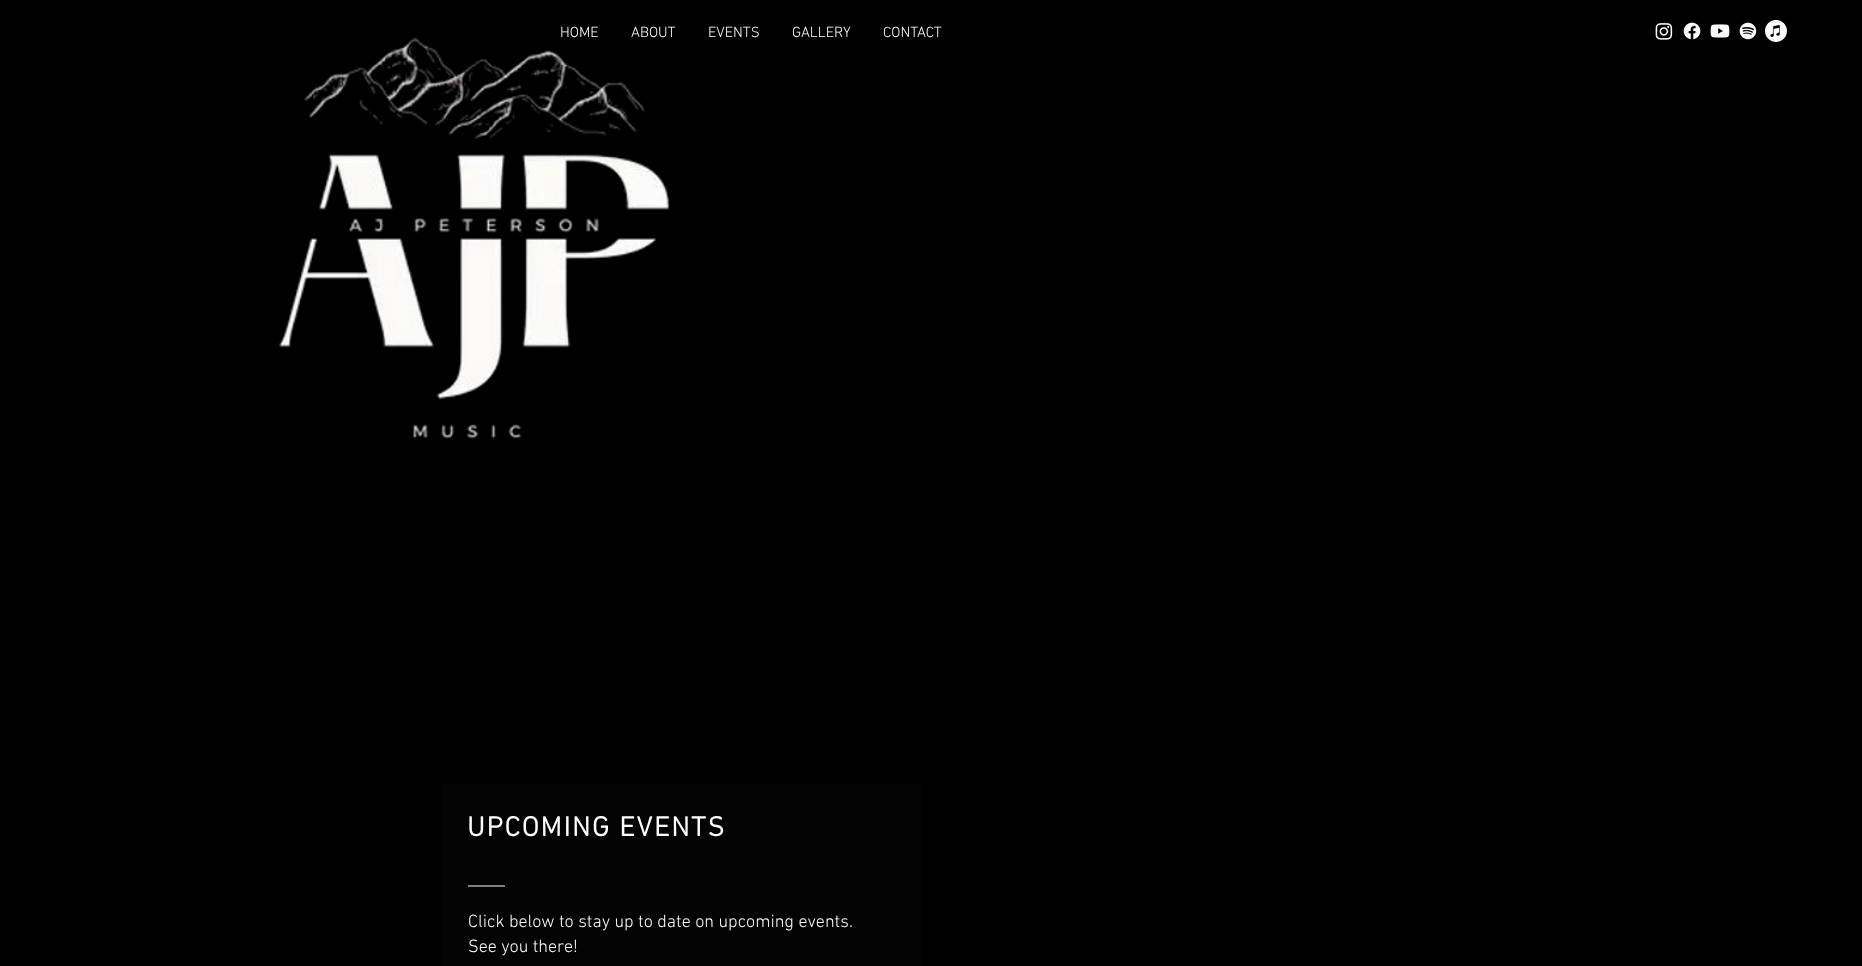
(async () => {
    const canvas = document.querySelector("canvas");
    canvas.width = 1862;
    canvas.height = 966;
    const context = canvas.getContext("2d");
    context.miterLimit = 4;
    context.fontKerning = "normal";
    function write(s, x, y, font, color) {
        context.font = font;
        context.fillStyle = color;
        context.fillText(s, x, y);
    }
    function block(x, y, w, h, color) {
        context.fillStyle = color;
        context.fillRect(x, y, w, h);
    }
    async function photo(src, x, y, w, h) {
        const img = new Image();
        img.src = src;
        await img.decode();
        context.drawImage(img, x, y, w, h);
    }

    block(0, 0, 1862, 966, "rgb(0, 0, 0)");
    await photo("media/6.png", 279, 37, 391, 402);
    write("HOME", 560, 37, "300 15px 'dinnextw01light'", "rgb(255, 255, 255)");
    write("ABOUT", 631, 37, "300 15px 'dinnextw01light'", "rgb(255, 255, 255)");
    write("EVENTS", 708, 37, "300 15px 'dinnextw01light'", "rgb(255, 255, 255)");
    write("GALLERY", 792, 37, "300 15px 'dinnextw01light'", "rgb(255, 255, 255)");
    write("CONTACT", 883, 37, "300 15px 'dinnextw01light'", "rgb(255, 255, 255)");
    await photo("media/1.png", 1655, 23, 18, 17);
    await photo("media/2.png", 1683, 22, 18, 18);
    await photo("media/3.png", 1710, 24, 20, 14);
    await photo("media/4.png", 1739, 22, 18, 18);
    await photo("media/5.png", 1765, 20, 22, 22);
    block(441, 784, 481, 182, "rgb(3, 3, 3)");
    context.letterSpacing = "1.7px";
    write("UPCOMING EVENTS", 467, 836, "bold 28px 'dinnextw01light'", "rgb(255, 255, 255)");
    block(468, 885, 37, 2, "rgb(128, 128, 128)");
    context.letterSpacing = "0px";
    write("Click below to stay up to date on upcoming events.", 468, 927, "300 18px 'dinnextw01light'", "rgb(255, 255, 255)");
    write("See you there!", 468, 952, "300 18px 'dinnextw01light'", "rgb(255, 255, 255)");
})();
